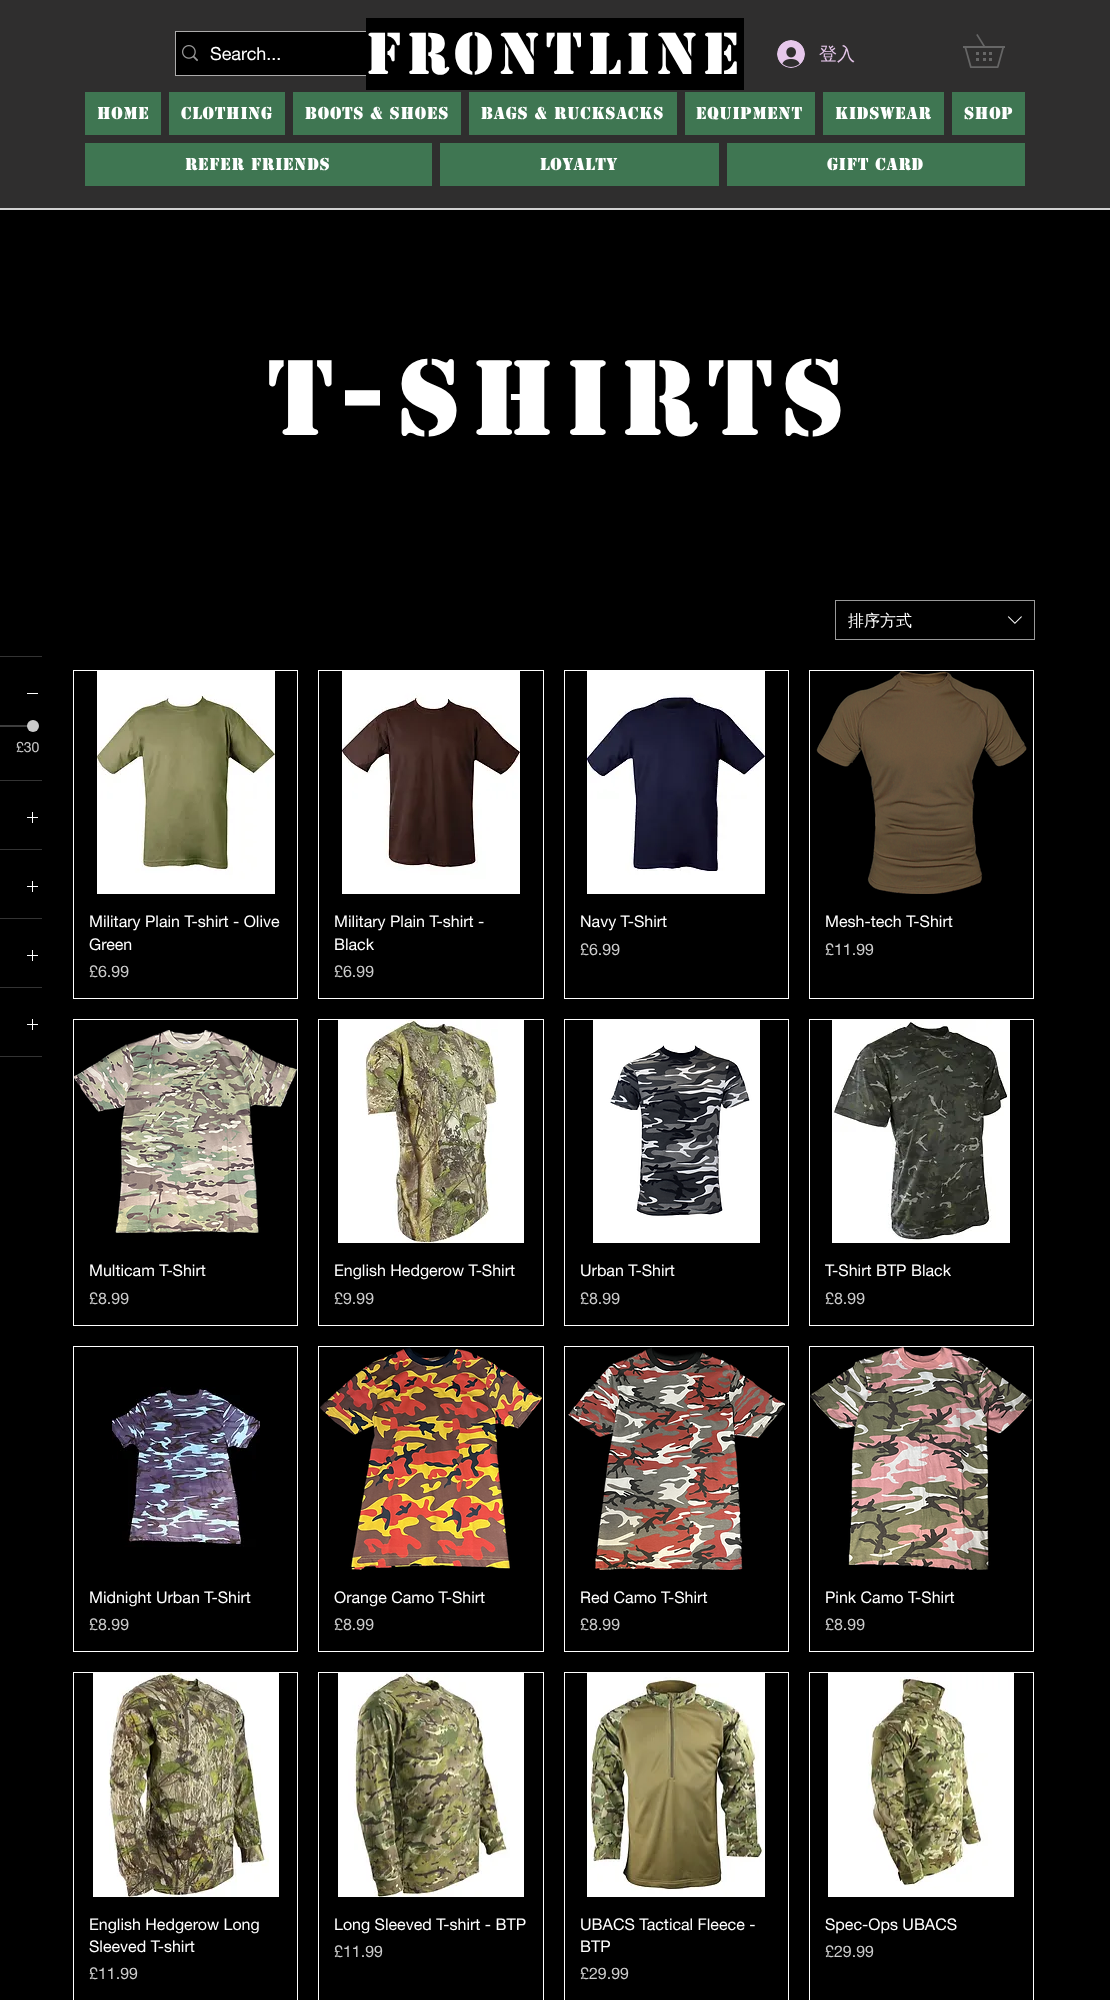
(async () => {
    const canvas = document.querySelector("canvas");
    canvas.width = 1110;
    canvas.height = 2000;
    const context = canvas.getContext("2d");
    context.miterLimit = 4;
    context.fontKerning = "normal";
    function write(s, x, y, font, color) {
        context.font = font;
        context.fillStyle = color;
        context.fillText(s, x, y);
    }
    function block(x, y, w, h, color) {
        context.fillStyle = color;
        context.fillRect(x, y, w, h);
    }
    async function photo(src, x, y, w, h) {
        const img = new Image();
        img.src = src;
        await img.decode();
        context.drawImage(img, x, y, w, h);
    }

    block(0, 0, 1110, 2000, "rgb(0, 0, 0)");
    block(0, 0, 1110, 208, "rgb(47, 46, 46)");
    block(0, 208, 1110, 2, "rgb(209, 209, 209)");
    context.strokeStyle = "rgb(172, 171, 171)";
    context.strokeRect(175.5, 31.5, 213, 44);
    block(366, 18, 378, 72, "rgb(0, 0, 0)");
    context.letterSpacing = "5.5px";
    write("FRONTLINE", 366, 74, "bold 55px 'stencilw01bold'", "rgb(255, 255, 255)");
    await photo("media/1.png", 777, 40, 28, 28);
    context.letterSpacing = "0px";
    write("登入", 819, 60, "500 18px WenQuanYi Zen Hei", "rgb(230, 199, 235)");
    await photo("media/2.png", 963, 34, 42, 34);
    block(85, 92, 76, 43, "rgb(63, 118, 82)");
    context.letterSpacing = "0.75px";
    write("HOME", 97, 119, "bold 16px 'stencilw01bold'", "rgb(255, 255, 255)");
    block(169, 92, 116, 43, "rgb(63, 118, 82)");
    write("CLOTHING", 181, 119, "bold 16px 'stencilw01bold'", "rgb(255, 255, 255)");
    block(293, 92, 168, 43, "rgb(63, 118, 82)");
    write("BOOTS & SHOES", 305, 119, "bold 16px 'stencilw01bold'", "rgb(255, 255, 255)");
    block(469, 92, 208, 43, "rgb(63, 118, 82)");
    write("BAGS & RUCKSACKS", 481, 119, "bold 16px 'stencilw01bold'", "rgb(255, 255, 255)");
    block(685, 92, 130, 43, "rgb(63, 118, 82)");
    write("EQUIPMENT", 696, 119, "bold 16px 'stencilw01bold'", "rgb(255, 255, 255)");
    block(823, 92, 121, 43, "rgb(63, 118, 82)");
    write("KIDSWEAR", 835, 119, "bold 16px 'stencilw01bold'", "rgb(255, 255, 255)");
    block(952, 92, 73, 43, "rgb(63, 118, 82)");
    write("Shop", 964, 119, "bold 16px 'stencilw01bold'", "rgb(255, 255, 255)");
    block(85, 143, 347, 43, "rgb(63, 118, 82)");
    write("Refer Friends", 185, 170, "bold 16px 'stencilw01bold'", "rgb(255, 255, 255)");
    block(440, 143, 279, 43, "rgb(63, 118, 82)");
    write("Loyalty", 540, 170, "bold 16px 'stencilw01bold'", "rgb(255, 255, 255)");
    block(727, 143, 298, 43, "rgb(63, 118, 82)");
    write("Gift Card", 827, 170, "bold 16px 'stencilw01bold'", "rgb(255, 255, 255)");
    block(176, 32, 190, 43, "rgb(0, 0, 0)");
    await photo("media/3.png", 182, 45, 16, 17);
    context.letterSpacing = "0px";
    write("Search...", 210, 60, "18px helvetica neue", "rgb(255, 255, 255)");
    context.letterSpacing = "10px";
    write("T-SHIRTS", 267, 435, "bold 100px 'stencilw01bold'", "rgb(255, 255, 255)");
    block(0, 656, 42, 1, "rgb(51, 51, 51)");
    block(0, 780, 42, 1, "rgb(51, 51, 51)");
    block(27, 693, 11, 1, "rgb(255, 255, 255)");
    block(0, 725, 32, 2, "rgb(61, 61, 61)");
    context.fillStyle = "rgb(204, 204, 204)";
    context.beginPath();
    context.arc(33, 726, 6, 0, Math.PI * 2);
    context.fill();
    context.letterSpacing = "0px";
    write("£30", 16, 752, "14px helvetica neue", "rgb(204, 204, 204)");
    block(0, 849, 42, 1, "rgb(51, 51, 51)");
    await photo("media/4.png", 27, 812, 11, 11);
    block(0, 918, 42, 1, "rgb(51, 51, 51)");
    await photo("media/4.png", 27, 881, 11, 11);
    block(0, 987, 42, 1, "rgb(51, 51, 51)");
    await photo("media/4.png", 27, 950, 11, 11);
    block(0, 1056, 42, 1, "rgb(51, 51, 51)");
    await photo("media/4.png", 27, 1019, 11, 11);
    context.strokeStyle = "rgb(153, 153, 153)";
    context.strokeRect(835.5, 600.5, 199, 39);
    write("排序方式", 848, 626, "500 16px WenQuanYi Zen Hei", "rgb(255, 255, 255)");
    await photo("media/5.png", 1007, 616, 15, 8);
    context.strokeStyle = "rgb(255, 255, 255)";
    context.strokeRect(73.5, 670.5, 224, 328);
    await photo("media/6.png", 97, 671, 178, 223);
    write("Military Plain T-shirt - Olive", 89, 927, "16px helvetica neue", "rgb(255, 255, 255)");
    write("Green", 89, 950, "16px helvetica neue", "rgb(255, 255, 255)");
    write("£6.99", 89, 977, "16px helvetica neue", "rgb(204, 204, 204)");
    context.strokeRect(318.5, 670.5, 225, 328);
    await photo("media/7.png", 342, 671, 178, 223);
    write("Military Plain T-shirt -", 334, 927, "16px helvetica neue", "rgb(255, 255, 255)");
    write("Black", 334, 950, "16px helvetica neue", "rgb(255, 255, 255)");
    write("£6.99", 334, 977, "16px helvetica neue", "rgb(204, 204, 204)");
    context.strokeRect(564.5, 670.5, 224, 328);
    await photo("media/8.png", 587, 671, 178, 223);
    write("Navy T-Shirt", 580, 927, "16px helvetica neue", "rgb(255, 255, 255)");
    write("£6.99", 580, 955, "16px helvetica neue", "rgb(204, 204, 204)");
    context.strokeRect(809.5, 670.5, 224, 328);
    await photo("media/9.png", 816, 671, 211, 223);
    write("Mesh-tech T-Shirt", 825, 927, "16px helvetica neue", "rgb(255, 255, 255)");
    write("£11.99", 825, 955, "16px helvetica neue", "rgb(204, 204, 204)");
    context.strokeRect(73.5, 1019.5, 224, 306);
    await photo("media/10.png", 74, 1030, 223, 203);
    write("Multicam T-Shirt", 89, 1276, "16px helvetica neue", "rgb(255, 255, 255)");
    write("£8.99", 89, 1304, "16px helvetica neue", "rgb(204, 204, 204)");
    context.strokeRect(318.5, 1019.5, 225, 306);
    await photo("media/11.png", 338, 1020, 186, 223);
    write("English Hedgerow T-Shirt", 334, 1276, "16px helvetica neue", "rgb(255, 255, 255)");
    write("£9.99", 334, 1304, "16px helvetica neue", "rgb(204, 204, 204)");
    context.strokeRect(564.5, 1019.5, 224, 306);
    await photo("media/12.png", 593, 1020, 167, 223);
    write("Urban T-Shirt", 580, 1276, "16px helvetica neue", "rgb(255, 255, 255)");
    write("£8.99", 580, 1304, "16px helvetica neue", "rgb(204, 204, 204)");
    context.strokeRect(809.5, 1019.5, 224, 306);
    await photo("media/13.png", 832, 1020, 178, 223);
    write("T-Shirt BTP Black", 825, 1276, "16px helvetica neue", "rgb(255, 255, 255)");
    write("£8.99", 825, 1304, "16px helvetica neue", "rgb(204, 204, 204)");
    context.strokeRect(73.5, 1346.5, 224, 305);
    await photo("media/14.png", 112, 1387, 148, 160);
    write("Midnight Urban T-Shirt", 89, 1603, "16px helvetica neue", "rgb(255, 255, 255)");
    write("£8.99", 89, 1630, "16px helvetica neue", "rgb(204, 204, 204)");
    context.strokeRect(318.5, 1346.5, 225, 305);
    await photo("media/15.png", 320, 1347, 222, 223);
    write("Orange Camo T-Shirt", 334, 1603, "16px helvetica neue", "rgb(255, 255, 255)");
    write("£8.99", 334, 1630, "16px helvetica neue", "rgb(204, 204, 204)");
    context.strokeRect(564.5, 1346.5, 224, 305);
    await photo("media/16.png", 568, 1347, 217, 223);
    write("Red Camo T-Shirt", 580, 1603, "16px helvetica neue", "rgb(255, 255, 255)");
    write("£8.99", 580, 1630, "16px helvetica neue", "rgb(204, 204, 204)");
    context.strokeRect(809.5, 1346.5, 224, 305);
    await photo("media/17.png", 810, 1347, 222, 223);
    write("Pink Camo T-Shirt", 825, 1603, "16px helvetica neue", "rgb(255, 255, 255)");
    write("£8.99", 825, 1630, "16px helvetica neue", "rgb(204, 204, 204)");
    context.strokeRect(73.5, 1672.5, 224, 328);
    await photo("media/18.png", 93, 1673, 186, 224);
    write("English Hedgerow Long", 89, 1930, "16px helvetica neue", "rgb(255, 255, 255)");
    write("Sleeved T-shirt", 89, 1952, "16px helvetica neue", "rgb(255, 255, 255)");
    write("£11.99", 89, 1979, "16px helvetica neue", "rgb(204, 204, 204)");
    context.strokeRect(318.5, 1672.5, 225, 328);
    await photo("media/19.png", 338, 1673, 186, 224);
    write("Long Sleeved T-shirt - BTP", 334, 1930, "16px helvetica neue", "rgb(255, 255, 255)");
    write("£11.99", 334, 1957, "16px helvetica neue", "rgb(204, 204, 204)");
    context.strokeRect(564.5, 1672.5, 224, 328);
    await photo("media/20.png", 587, 1673, 178, 224);
    write("UBACS Tactical Fleece -", 580, 1930, "16px helvetica neue", "rgb(255, 255, 255)");
    write("BTP", 580, 1952, "16px helvetica neue", "rgb(255, 255, 255)");
    write("£29.99", 580, 1979, "16px helvetica neue", "rgb(204, 204, 204)");
    context.strokeRect(809.5, 1672.5, 224, 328);
    await photo("media/21.png", 828, 1673, 186, 224);
    write("Spec-Ops UBACS", 825, 1930, "16px helvetica neue", "rgb(255, 255, 255)");
    write("£29.99", 825, 1957, "16px helvetica neue", "rgb(204, 204, 204)");
})();
